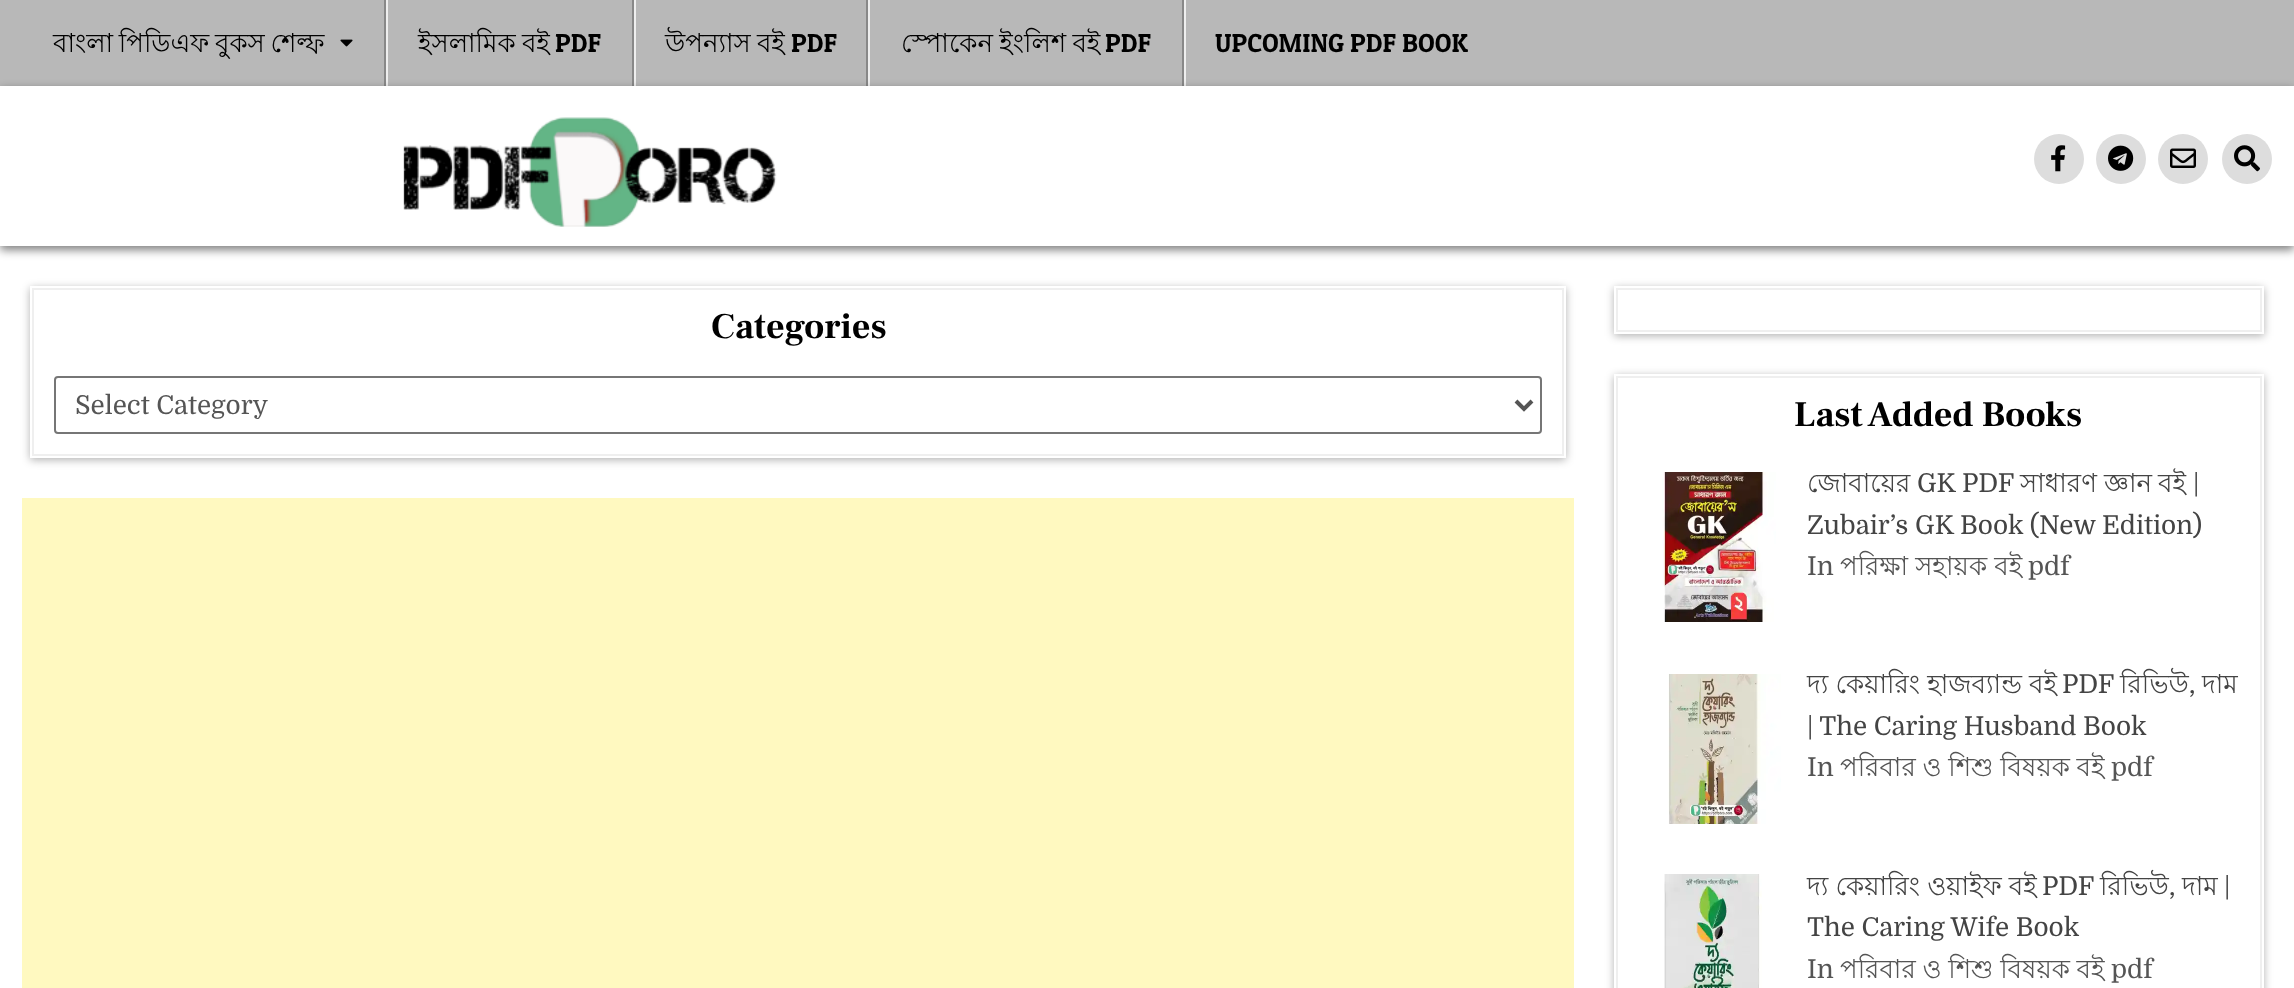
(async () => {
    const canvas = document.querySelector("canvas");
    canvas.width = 2294;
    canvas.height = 988;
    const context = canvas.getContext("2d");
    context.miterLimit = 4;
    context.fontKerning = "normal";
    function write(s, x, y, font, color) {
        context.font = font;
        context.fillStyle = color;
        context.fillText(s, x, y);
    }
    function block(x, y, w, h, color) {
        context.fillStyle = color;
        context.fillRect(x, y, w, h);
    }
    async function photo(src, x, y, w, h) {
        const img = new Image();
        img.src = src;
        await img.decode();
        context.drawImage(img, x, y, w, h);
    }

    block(0, 0, 2294, 988, "rgb(255, 255, 255)");
    block(0, 0, 2294, 86, "rgb(184, 184, 184)");
    block(384, 0, 2, 86, "rgb(136, 136, 136)");
    context.wordSpacing = "-1.5px";
    write("বাংলা পিডিএফ বুকস শেল্ফ", 53, 52, "26px Lohit Bengali", "rgb(0, 0, 0)");
    await photo("media/1.png", 340, 39, 13, 8);
    block(632, 0, 2, 86, "rgb(136, 136, 136)");
    block(386, 0, 2, 86, "rgb(238, 238, 238)");
    context.wordSpacing = "-1px";
    write("ইসলামিক বই", 418, 52, "26px Lohit Bengali", "rgb(0, 0, 0)");
    context.wordSpacing = "0px";
    write("PDF", 555, 52, "26px Patua One", "rgb(0, 0, 0)");
    block(866, 0, 2, 86, "rgb(136, 136, 136)");
    block(634, 0, 2, 86, "rgb(238, 238, 238)");
    context.wordSpacing = "-1px";
    write("উপন্যাস বই", 665, 52, "26px Lohit Bengali", "rgb(0, 0, 0)");
    context.wordSpacing = "0px";
    write("PDF", 791, 52, "26px Patua One", "rgb(0, 0, 0)");
    block(1182, 0, 2, 86, "rgb(136, 136, 136)");
    block(868, 0, 2, 86, "rgb(238, 238, 238)");
    context.wordSpacing = "-1px";
    write("স্পোকেন ইংলিশ বই", 901, 52, "26px Lohit Bengali", "rgb(0, 0, 0)");
    context.wordSpacing = "0px";
    write("PDF", 1105, 52, "26px Patua One", "rgb(0, 0, 0)");
    block(1184, 0, 2, 86, "rgb(238, 238, 238)");
    write("UPCOMING PDF BOOK", 1215, 52, "26px Patua One", "rgb(0, 0, 0)");
    context.fillStyle = "rgba(0, 0, 0, 0.5)";
    context.filter = "blur(5px)";
    context.beginPath();
    context.rect(0, 90, 2294, 160);
    context.fill();
    context.filter = "none";
    block(0, 86, 2294, 160, "rgb(255, 255, 255)");
    await photo("media/2.png", 403, 117, 374, 110);
    context.fillStyle = "rgb(221, 221, 221)";
    context.beginPath();
    context.arc(2059, 159, 25, 0, Math.PI * 2);
    context.fill();
    await photo("media/3.png", 2051, 145, 15, 27);
    context.beginPath();
    context.arc(2121, 159, 25, 0, Math.PI * 2);
    context.fill();
    await photo("media/4.png", 2108, 145, 26, 26);
    context.beginPath();
    context.arc(2183, 159, 25, 0, Math.PI * 2);
    context.fill();
    await photo("media/5.png", 2170, 148, 26, 20);
    context.beginPath();
    context.arc(2247, 159, 25, 0, Math.PI * 2);
    context.fill();
    await photo("media/6.png", 2234, 145, 26, 27);
    context.save();
    context.beginPath();
    context.moveTo(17, 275);
    context.lineTo(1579, 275);
    context.lineTo(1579, 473);
    context.lineTo(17, 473);
    context.closePath();
    context.moveTo(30, 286);
    context.lineTo(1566, 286);
    context.lineTo(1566, 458);
    context.lineTo(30, 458);
    context.closePath();
    context.clip("evenodd");
    context.fillStyle = "rgba(0, 0, 0, 0.3)";
    context.filter = "blur(4px)";
    context.beginPath();
    context.rect(30, 288, 1536, 172);
    context.fill();
    context.filter = "none";
    context.restore();
    context.strokeStyle = "rgb(239, 239, 239)";
    context.lineWidth = 2;
    context.strokeRect(33, 289, 1530, 166);
    write("Categories", 711, 338, "bold 36px Frank Ruhl Libre", "rgb(0, 0, 0)");
    context.beginPath();
    context.roundRect(55, 377, 1486, 56, 3);
    context.strokeStyle = "rgb(118, 118, 118)";
    context.stroke();
    context.beginPath();
    context.moveTo(1516, 401);
    context.lineTo(1524, 409);
    context.lineTo(1532, 401);
    context.strokeStyle = "rgb(85, 85, 85)";
    context.lineWidth = 4;
    context.stroke();
    write("Select Category", 75, 414, "26px Domine", "rgb(85, 85, 85)");
    block(22, 498, 1552, 490, "rgb(255, 249, 192)");
    context.save();
    context.beginPath();
    context.moveTo(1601, 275);
    context.lineTo(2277, 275);
    context.lineTo(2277, 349);
    context.lineTo(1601, 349);
    context.closePath();
    context.moveTo(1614, 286);
    context.lineTo(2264, 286);
    context.lineTo(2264, 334);
    context.lineTo(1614, 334);
    context.closePath();
    context.clip("evenodd");
    context.fillStyle = "rgba(0, 0, 0, 0.3)";
    context.filter = "blur(4px)";
    context.beginPath();
    context.rect(1614, 288, 650, 48);
    context.fill();
    context.filter = "none";
    context.restore();
    context.strokeStyle = "rgb(239, 239, 239)";
    context.lineWidth = 2;
    context.strokeRect(1617, 289, 644, 42);
    context.save();
    context.beginPath();
    context.moveTo(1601, 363);
    context.lineTo(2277, 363);
    context.lineTo(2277, 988);
    context.lineTo(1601, 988);
    context.closePath();
    context.moveTo(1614, 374);
    context.lineTo(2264, 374);
    context.lineTo(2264, 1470);
    context.lineTo(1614, 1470);
    context.closePath();
    context.clip("evenodd");
    context.fillStyle = "rgba(0, 0, 0, 0.3)";
    context.filter = "blur(4px)";
    context.beginPath();
    context.rect(1614, 376, 650, 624);
    context.fill();
    context.filter = "none";
    context.restore();
    context.strokeRect(1617, 377, 644, 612);
    write("Last Added Books", 1794, 426, "bold 36px Frank Ruhl Libre", "rgb(0, 0, 0)");
    await photo("media/7.png", 1662, 472, 114, 150);
    write("জোবায়ের", 1807, 492, "26px Lohit Bengali", "rgb(68, 68, 68)");
    write("GK PDF", 1917, 492, "26px Domine", "rgb(68, 68, 68)");
    write("সাধারণ", 2020, 492, "26px Lohit Bengali", "rgb(68, 68, 68)");
    write("জ্ঞান", 2104, 492, "26px Lohit Bengali", "rgb(68, 68, 68)");
    write("বই", 2158, 492, "26px Lohit Bengali", "rgb(68, 68, 68)");
    write("|", 2193, 492, "26px Domine", "rgb(68, 68, 68)");
    write("Zubair’s GK Book (New Edition)", 1807, 534, "26px Domine", "rgb(68, 68, 68)");
    write("In", 1807, 575, "26px Domine", "rgb(85, 85, 85)");
    write("পরিক্ষা সহায়ক বই", 1840, 575, "26px Lohit Bengali", "rgb(85, 85, 85)");
    write("pdf", 2028, 575, "26px Domine", "rgb(85, 85, 85)");
    await photo("media/8.png", 1668, 674, 113, 150);
    write("দ্য কেয়ারিং হাজব্যান্ড বই", 1807, 693, "26px Lohit Bengali", "rgb(68, 68, 68)");
    write("PDF", 2062, 693, "26px Domine", "rgb(68, 68, 68)");
    write("রিভিউ", 2120, 693, "26px Lohit Bengali", "rgb(68, 68, 68)");
    write(",", 2189, 693, "26px Domine", "rgb(68, 68, 68)");
    write("দাম", 2202, 693, "26px Lohit Bengali", "rgb(68, 68, 68)");
    write("| The Caring Husband Book", 1807, 735, "26px Domine", "rgb(68, 68, 68)");
    write("In", 1807, 776, "26px Domine", "rgb(85, 85, 85)");
    context.wordSpacing = "-0.5px";
    write("পরিবার ও শিশু বিষয়ক বই", 1840, 776, "26px Lohit Bengali", "rgb(85, 85, 85)");
    context.wordSpacing = "0px";
    write("pdf", 2111, 776, "26px Domine", "rgb(85, 85, 85)");
    await photo("media/9.png", 1664, 874, 98, 114);
    write("দ্য কেয়ারিং ওয়াইফ বই", 1807, 895, "26px Lohit Bengali", "rgb(68, 68, 68)");
    write("PDF", 2042, 895, "26px Domine", "rgb(68, 68, 68)");
    write("রিভিউ", 2100, 895, "26px Lohit Bengali", "rgb(68, 68, 68)");
    write(",", 2169, 895, "26px Domine", "rgb(68, 68, 68)");
    write("দাম", 2182, 895, "26px Lohit Bengali", "rgb(68, 68, 68)");
    write("|", 2224, 895, "26px Domine", "rgb(68, 68, 68)");
    write("The Caring Wife Book", 1807, 936, "26px Domine", "rgb(68, 68, 68)");
    write("In", 1807, 978, "26px Domine", "rgb(85, 85, 85)");
    context.wordSpacing = "-0.5px";
    write("পরিবার ও শিশু বিষয়ক বই", 1840, 978, "26px Lohit Bengali", "rgb(85, 85, 85)");
    context.wordSpacing = "0px";
    write("pdf", 2111, 978, "26px Domine", "rgb(85, 85, 85)");
})();
